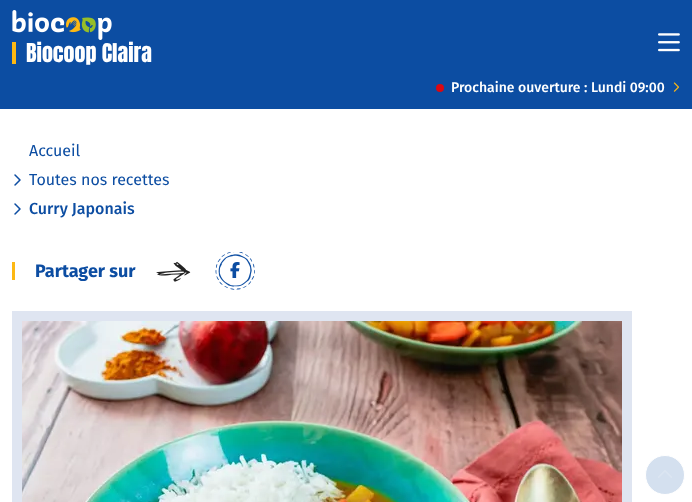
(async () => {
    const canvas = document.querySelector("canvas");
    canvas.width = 692;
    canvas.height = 502;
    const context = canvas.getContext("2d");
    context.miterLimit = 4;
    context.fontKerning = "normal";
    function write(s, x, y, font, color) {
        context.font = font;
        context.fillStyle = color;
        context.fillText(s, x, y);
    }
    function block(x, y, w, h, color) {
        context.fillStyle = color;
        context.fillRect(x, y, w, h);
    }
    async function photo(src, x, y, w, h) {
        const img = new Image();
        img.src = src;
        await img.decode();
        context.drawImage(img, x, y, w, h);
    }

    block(0, 0, 692, 502, "rgb(255, 255, 255)");
    block(0, 0, 692, 109, "rgb(12, 77, 162)");
    await photo("media/1.png", 12, 10, 100, 30);
    block(12, 42, 4, 22, "rgb(253, 184, 19)");
    write("Biocoop Claira", 26, 62, "22px Anton", "rgb(255, 255, 255)");
    await photo("media/2.png", 658, 33, 22, 19);
    context.fillStyle = "rgb(218, 8, 18)";
    context.beginPath();
    context.arc(440, 88, 4, 0, Math.PI * 2);
    context.fill();
    write("Prochaine ouverture : Lundi 09:00", 451, 92, "500 14px Fira Sans", "rgb(255, 255, 255)");
    await photo("media/3.png", 673, 82, 7, 10);
    context.fillStyle = "rgb(212, 224, 239)";
    context.beginPath();
    context.arc(665, 475, 19.5, 0, Math.PI * 2);
    context.fill();
    context.strokeStyle = "rgb(255, 255, 255)";
    context.stroke();
    await photo("media/4.png", 658, 470, 14, 8);
    write("Accueil", 29, 156, "16px Fira Sans", "rgb(12, 77, 162)");
    await photo("media/5.png", 14, 174, 7, 12);
    write("Toutes nos recettes", 29, 185, "16px Fira Sans", "rgb(12, 77, 162)");
    await photo("media/5.png", 14, 203, 7, 12);
    write("Curry Japonais", 29, 214, "500 16px Fira Sans", "rgb(12, 77, 162)");
    block(12, 262, 3, 18, "rgb(253, 184, 19)");
    write("Partager sur", 35, 277, "bold 18px Fira Sans", "rgb(12, 77, 162)");
    await photo("media/6.png", 156, 261, 35, 21);
    await photo("media/7.png", 215, 252, 40, 38);
    await photo("media/8.png", 230, 262, 10, 16);
    context.beginPath();
    context.rect(17, 316, 610, 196);
    context.strokeStyle = "rgb(223, 229, 241)";
    context.lineWidth = 10;
    context.stroke();
    await photo("media/9.png", 22, 321, 600, 181);
})();
